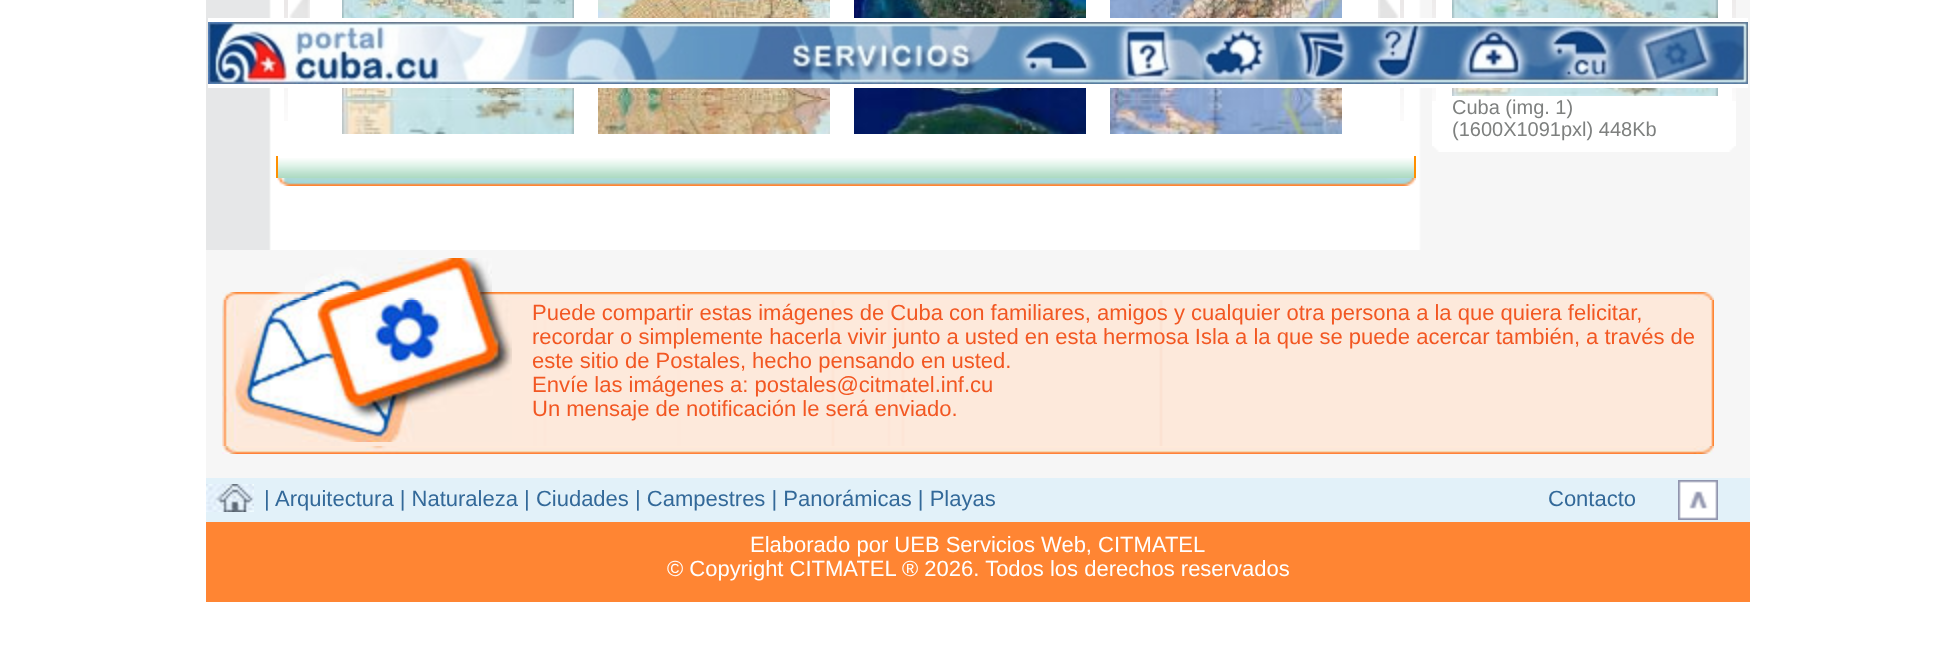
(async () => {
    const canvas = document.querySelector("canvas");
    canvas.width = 1955;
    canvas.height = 672;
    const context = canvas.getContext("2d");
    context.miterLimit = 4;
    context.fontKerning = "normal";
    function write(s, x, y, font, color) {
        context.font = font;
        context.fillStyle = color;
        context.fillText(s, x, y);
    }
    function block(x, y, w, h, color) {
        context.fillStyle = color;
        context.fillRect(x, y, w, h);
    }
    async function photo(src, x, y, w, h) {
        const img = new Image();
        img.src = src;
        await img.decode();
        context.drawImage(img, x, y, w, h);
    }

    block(0, 0, 1955, 672, "rgb(255, 255, 255)");
    await photo("media/2.png", 206, 0, 1544, 250);
    await photo("media/3.png", 284, 0, 4, 121);
    await photo("media/5.png", 342, 0, 232, 100);
    await photo("media/7.png", 598, 0, 232, 100);
    await photo("media/9.png", 854, 0, 232, 100);
    await photo("media/11.png", 1110, 0, 232, 100);
    await photo("media/3.png", 1400, 0, 4, 121);
    block(1432, 0, 304, 146, "rgb(255, 255, 255)");
    await photo("media/16.png", 1432, 0, 4, 101);
    await photo("media/16.png", 1732, 0, 4, 101);
    await photo("media/17.png", 1452, 0, 266, 96);
    block(208, 18, 1540, 4, "rgb(255, 255, 255)");
    await photo("media/1.png", 208, 22, 1540, 62);
    block(208, 84, 1540, 4, "rgb(255, 255, 255)");
    await photo("media/4.png", 289, 0, 21, 18);
    await photo("media/6.png", 342, 100, 232, 34);
    await photo("media/8.png", 598, 100, 232, 34);
    await photo("media/10.png", 854, 100, 232, 34);
    await photo("media/12.png", 1110, 100, 232, 34);
    await photo("media/13.png", 1378, 0, 21, 18);
    await photo("media/14.png", 278, 158, 1136, 20);
    block(1414, 156, 2, 22, "rgb(255, 144, 1)");
    block(276, 156, 2, 22, "rgb(255, 144, 1)");
    await photo("media/15.png", 277, 178, 1139, 8);
    write("Cuba (img. 1)", 1452, 114, "20px Liberation Sans", "rgb(126, 128, 127)");
    write("(1600X1091pxl) 448Kb", 1452, 136, "20px Liberation Sans", "rgb(126, 128, 127)");
    await photo("media/18.png", 1432, 146, 304, 6);
    block(206, 250, 1544, 228, "rgb(246, 246, 246)");
    await photo("media/19.png", 305, 258, 187, 34);
    await photo("media/20.png", 222, 292, 1492, 8);
    await photo("media/21.png", 222, 300, 1492, 146);
    await photo("media/22.png", 222, 300, 290, 142);
    write("Puede compartir estas imágenes de Cuba con familiares, amigos y cualquier otra persona a la que quiera felicitar,", 532, 320, "22px Liberation Sans", "rgb(242, 87, 34)");
    write("recordar o simplemente hacerla vivir junto a usted en esta hermosa Isla a la que se puede acercar también, a través de", 532, 344, "22px Liberation Sans", "rgb(242, 87, 34)");
    write("este sitio de Postales, hecho pensando en usted.", 532, 368, "22px Liberation Sans", "rgb(242, 87, 34)");
    write("Envíe las imágenes a: postales@citmatel.inf.cu", 532, 392, "22px Liberation Sans", "rgb(242, 87, 34)");
    write("Un mensaje de notificación le será enviado.", 532, 416, "22px Liberation Sans", "rgb(242, 87, 34)");
    await photo("media/23.png", 222, 446, 1492, 8);
    block(206, 478, 1544, 44, "rgb(226, 241, 249)");
    await photo("media/24.png", 206, 484, 48, 28);
    write("|", 264, 506, "22px Liberation Sans", "rgb(51, 105, 153)");
    write("Arquitectura | Naturaleza | Ciudades | Campestres | Panorámicas | Playas", 275, 506, "22px Liberation Sans", "rgb(51, 105, 153)");
    write("Contacto", 1548, 506, "22px Liberation Sans", "rgb(51, 105, 153)");
    await photo("media/25.png", 1678, 480, 40, 40);
    block(206, 522, 1544, 80, "rgb(255, 133, 51)");
    write("Elaborado por UEB Servicios Web, CITMATEL", 750, 552, "22px Liberation Sans", "rgb(255, 255, 255)");
    write("© Copyright CITMATEL ® 2026. Todos los derechos reservados", 667, 576, "22px Liberation Sans", "rgb(255, 255, 255)");
})();
